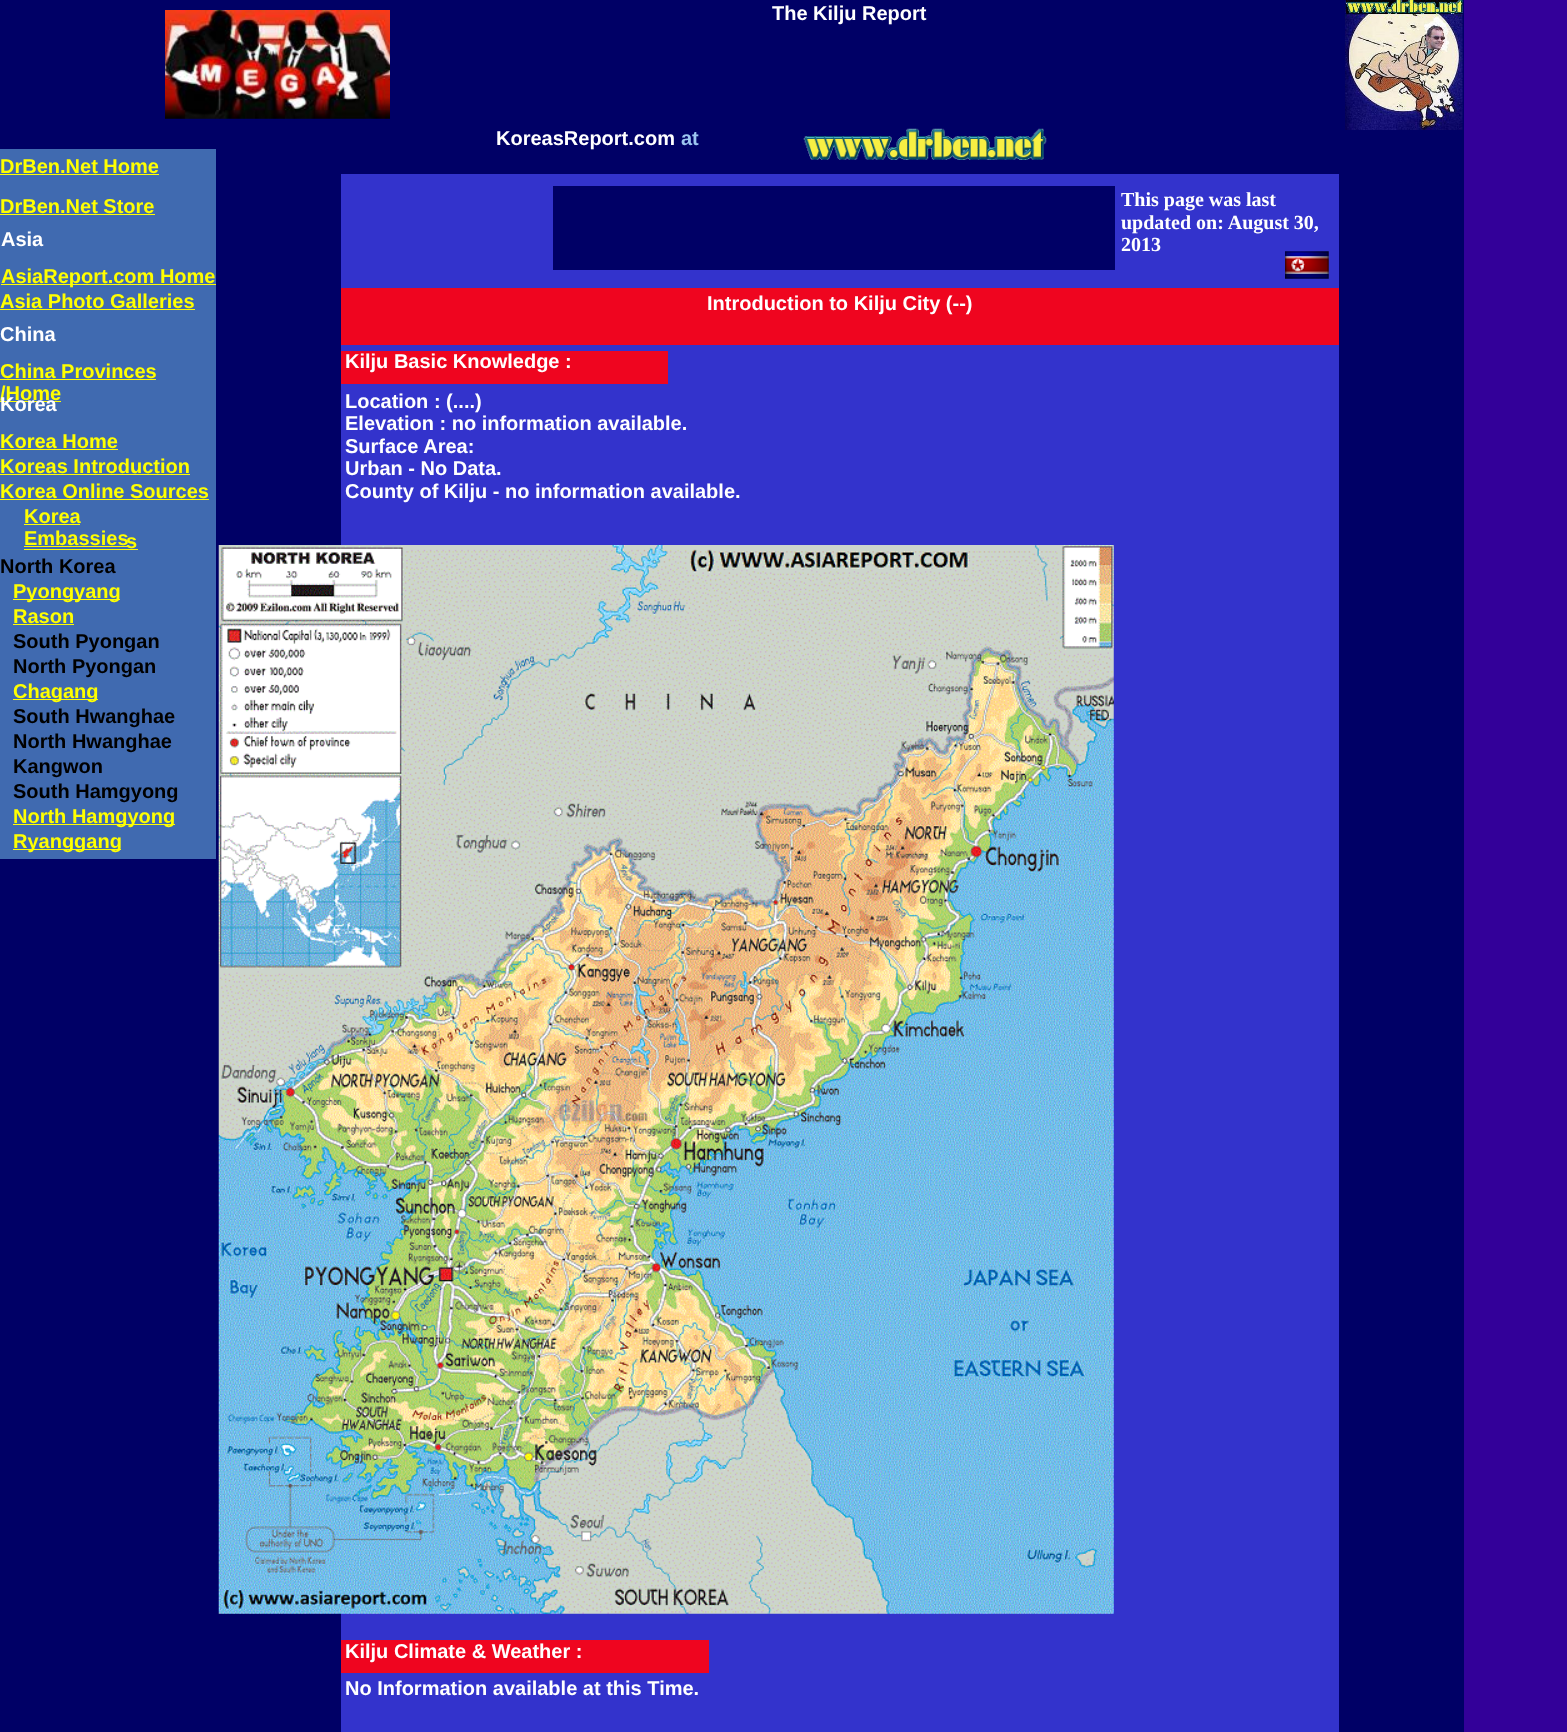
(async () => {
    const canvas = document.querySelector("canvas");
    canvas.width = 1567;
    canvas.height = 1732;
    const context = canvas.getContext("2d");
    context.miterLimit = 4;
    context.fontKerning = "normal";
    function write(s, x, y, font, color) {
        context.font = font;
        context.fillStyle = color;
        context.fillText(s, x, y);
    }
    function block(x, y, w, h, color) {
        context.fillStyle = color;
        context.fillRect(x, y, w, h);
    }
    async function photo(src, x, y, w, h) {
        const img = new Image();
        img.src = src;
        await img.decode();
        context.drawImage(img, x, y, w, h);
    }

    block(0, 0, 1567, 1732, "rgb(51, 0, 153)");
    block(0, 0, 341, 1732, "rgb(0, 0, 102)");
    block(341, 0, 1123, 174, "rgb(0, 0, 102)");
    await photo("media/1.png", 165, 10, 225, 109);
    write("The Kilju Report", 772, 20, "bold 20px Liberation Sans", "rgb(255, 255, 255)");
    await photo("media/2.png", 1345, 0, 118, 130);
    write("KoreasReport.com", 496, 145, "bold 20px Liberation Sans", "rgb(255, 255, 255)");
    write("at", 681, 145, "bold 20px Liberation Sans", "rgb(156, 197, 240)");
    await photo("media/3.png", 803, 128, 244, 32);
    block(0, 149, 216, 710, "rgb(64, 106, 176)");
    write("DrBen.Net Home", 0, 173, "bold 20px Liberation Sans", "rgb(255, 255, 0)");
    block(0, 174, 159, 1, "rgb(255, 255, 0)");
    block(341, 174, 998, 1558, "rgb(51, 51, 204)");
    block(1339, 174, 125, 1558, "rgb(0, 0, 102)");
    write("DrBen.Net Store", 0, 213, "bold 20px Liberation Sans", "rgb(255, 255, 0)");
    block(0, 214, 155, 1, "rgb(255, 255, 0)");
    block(553, 186, 562, 84, "rgb(0, 0, 102)");
    write("This page was last", 1121, 206, "bold 20px Liberation Serif", "rgb(255, 255, 255)");
    write("updated on: August 30,", 1121, 229, "bold 20px Liberation Serif", "rgb(255, 255, 255)");
    write("2013", 1121, 251, "bold 20px Liberation Serif", "rgb(255, 255, 255)");
    write("Asia", 1, 246, "bold 20px Liberation Sans", "rgb(255, 255, 255)");
    block(1, 284, 215, 1, "rgb(255, 255, 0)");
    write("AsiaReport.com Home", 1, 283, "bold 20px Liberation Sans", "rgb(255, 255, 0)");
    await photo("media/4.png", 1285, 251, 44, 28);
    write("Asia Photo Galleries", 0, 308, "bold 20px Liberation Sans", "rgb(255, 255, 0)");
    block(0, 309, 195, 1, "rgb(255, 255, 0)");
    block(341, 288, 998, 57, "rgb(239, 5, 31)");
    write("Introduction to Kilju City (--)", 707, 310, "bold 20px Liberation Sans", "rgb(255, 255, 255)");
    write("China", 0, 341, "bold 20px Liberation Sans", "rgb(255, 255, 255)");
    block(341, 351, 327, 33, "rgb(239, 5, 31)");
    write("China Provinces", 0, 378, "bold 20px Liberation Sans", "rgb(255, 255, 0)");
    block(0, 379, 156, 1, "rgb(255, 255, 0)");
    write("/Home", 0, 400, "bold 20px Liberation Sans", "rgb(255, 255, 0)");
    block(0, 401, 61, 1, "rgb(255, 255, 0)");
    write("Kilju Basic Knowledge :", 345, 368, "bold 20px Liberation Sans", "rgb(255, 255, 255)");
    write("Korea", 0, 411, "bold 20px Liberation Sans", "rgb(255, 255, 255)");
    write("Location : (....)", 345, 408, "bold 20px Liberation Sans", "rgb(255, 255, 255)");
    write("Elevation : no information available.", 345, 430, "bold 20px Liberation Sans", "rgb(255, 255, 255)");
    write("Surface Area:", 345, 453, "bold 20px Liberation Sans", "rgb(255, 255, 255)");
    write("Urban - No Data.", 345, 475, "bold 20px Liberation Sans", "rgb(255, 255, 255)");
    write("County of Kilju - no information available.", 345, 498, "bold 20px Liberation Sans", "rgb(255, 255, 255)");
    write("Korea Home", 0, 448, "bold 20px Liberation Sans", "rgb(255, 255, 0)");
    block(0, 449, 118, 1, "rgb(255, 255, 0)");
    write("Koreas Introduction", 0, 473, "bold 20px Liberation Sans", "rgb(255, 255, 0)");
    block(0, 474, 190, 1, "rgb(255, 255, 0)");
    write("Korea Online Sources", 0, 498, "bold 20px Liberation Sans", "rgb(255, 255, 0)");
    block(0, 499, 209, 1, "rgb(255, 255, 0)");
    write("Korea", 24, 523, "bold 20px Liberation Sans", "rgb(255, 255, 0)");
    block(24, 524, 56, 1, "rgb(255, 255, 0)");
    write("Embassies", 24, 545, "bold 20px Liberation Sans", "rgb(255, 255, 0)");
    block(24, 546, 105, 1, "rgb(255, 255, 0)");
    write("s", 126, 548, "bold 20px Liberation Sans", "rgb(255, 255, 0)");
    block(24, 549, 114, 1, "rgb(255, 255, 0)");
    write("North Korea", 0, 573, "bold 20px Liberation Sans", "rgb(0, 0, 0)");
    await photo("media/5.png", 218, 545, 896, 1069);
    block(13, 599, 107, 1, "rgb(255, 255, 0)");
    write("Pyongyang", 13, 598, "bold 20px Liberation Sans", "rgb(255, 255, 0)");
    write("Rason", 13, 623, "bold 20px Liberation Sans", "rgb(255, 255, 0)");
    block(13, 624, 61, 1, "rgb(255, 255, 0)");
    write("South Pyongan", 13, 648, "bold 20px Liberation Sans", "rgb(0, 0, 0)");
    write("North Pyongan", 13, 673, "bold 20px Liberation Sans", "rgb(0, 0, 0)");
    block(13, 699, 85, 1, "rgb(255, 255, 0)");
    write("Chagang", 13, 698, "bold 20px Liberation Sans", "rgb(255, 255, 0)");
    write("South Hwanghae", 13, 723, "bold 20px Liberation Sans", "rgb(0, 0, 0)");
    write("North Hwanghae", 13, 748, "bold 20px Liberation Sans", "rgb(0, 0, 0)");
    write("Kangwon", 13, 773, "bold 20px Liberation Sans", "rgb(0, 0, 0)");
    write("South Hamgyong", 13, 798, "bold 20px Liberation Sans", "rgb(0, 0, 0)");
    block(13, 824, 162, 1, "rgb(255, 255, 0)");
    write("North Hamgyong", 13, 823, "bold 20px Liberation Sans", "rgb(255, 255, 0)");
    block(13, 849, 108, 1, "rgb(255, 255, 0)");
    write("Ryanggang", 13, 848, "bold 20px Liberation Sans", "rgb(255, 255, 0)");
    block(341, 1640, 368, 33, "rgb(239, 5, 31)");
    write("Kilju Climate & Weather :", 345, 1658, "bold 20px Liberation Sans", "rgb(255, 255, 255)");
    write("No Information available at this Time.", 345, 1695, "bold 20px Liberation Sans", "rgb(255, 255, 255)");
})();
